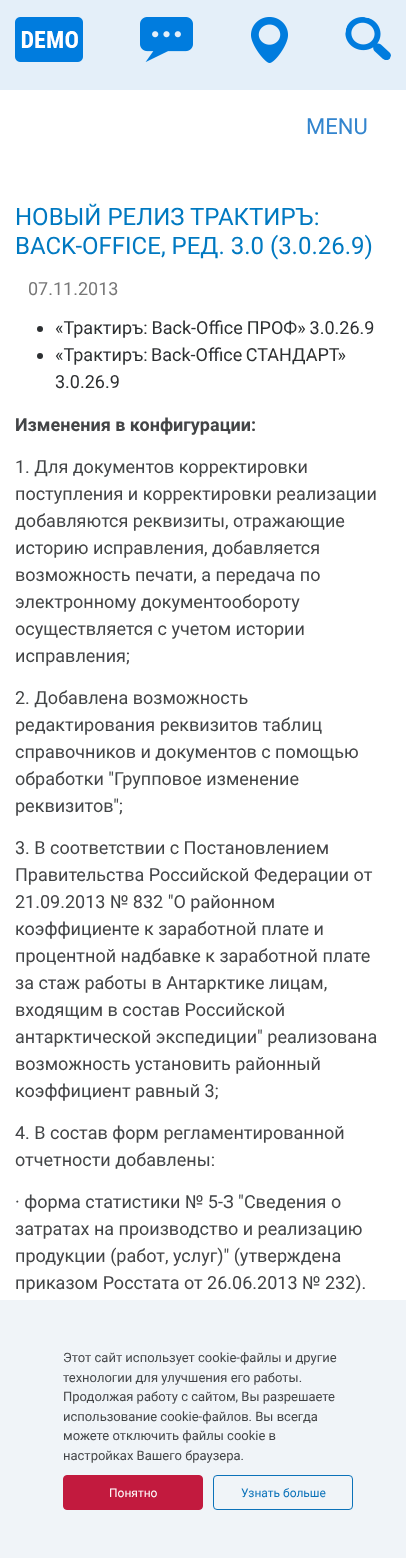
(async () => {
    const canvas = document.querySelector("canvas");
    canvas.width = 406;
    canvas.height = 1558;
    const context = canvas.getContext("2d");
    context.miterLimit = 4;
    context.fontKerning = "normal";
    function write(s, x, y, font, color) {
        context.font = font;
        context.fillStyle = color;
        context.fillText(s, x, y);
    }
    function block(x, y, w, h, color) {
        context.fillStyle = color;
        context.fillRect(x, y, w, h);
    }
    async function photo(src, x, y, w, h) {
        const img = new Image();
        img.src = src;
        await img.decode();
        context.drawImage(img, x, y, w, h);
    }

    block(0, 0, 406, 1558, "rgb(255, 255, 255)");
    block(0, 0, 406, 90, "rgb(228, 239, 249)");
    await photo("media/1.png", 15, 17, 68, 45);
    await photo("media/2.png", 140, 17, 53, 45);
    await photo("media/3.png", 251, 17, 37, 46);
    await photo("media/4.png", 345, 17, 46, 43);
    write("MENU", 306, 134, "22px Roboto", "rgb(51, 133, 206)");
    write("НОВЫЙ РЕЛИЗ ТРАКТИРЪ:", 15, 225, "24px Roboto", "rgb(0, 121, 193)");
    write("BACK-OFFICE, РЕД. 3.0 (3.0.26.9)", 15, 254, "24px Roboto", "rgb(0, 121, 193)");
    write("07.11.2013", 28, 295, "18px Roboto", "rgb(119, 119, 119)");
    context.fillStyle = "rgb(44, 47, 49)";
    context.beginPath();
    context.arc(40, 329, 3, 0, Math.PI * 2);
    context.fill();
    context.wordSpacing = "-0.5px";
    write("«Трактиръ: Back-Office ПРОФ» 3.0.26.9", 55, 334, "18px Roboto", "rgb(44, 47, 49)");
    context.beginPath();
    context.arc(40, 356, 3, 0, Math.PI * 2);
    context.fill();
    context.wordSpacing = "-1px";
    write("«Трактиръ: Back-Office СТАНДАРТ»", 55, 361, "18px Roboto", "rgb(44, 47, 49)");
    context.wordSpacing = "0px";
    write("3.0.26.9", 55, 388, "18px Roboto", "rgb(44, 47, 49)");
    write("Изменения в конфигурации:", 15, 431, "bold 18px Roboto", "rgb(67, 69, 71)");
    write("1. Для документов корректировки", 15, 473, "18px Roboto", "rgb(67, 69, 71)");
    write("поступления и корректировки реализации", 15, 500, "18px Roboto", "rgb(67, 69, 71)");
    write("добавляются реквизиты, отражающие", 15, 527, "18px Roboto", "rgb(67, 69, 71)");
    write("историю исправления, добавляется", 15, 554, "18px Roboto", "rgb(67, 69, 71)");
    write("возможность печати, а передача по", 15, 581, "18px Roboto", "rgb(67, 69, 71)");
    write("электронному документообороту", 15, 608, "18px Roboto", "rgb(67, 69, 71)");
    write("осуществляется с учетом истории", 15, 635, "18px Roboto", "rgb(67, 69, 71)");
    write("исправления;", 15, 662, "18px Roboto", "rgb(67, 69, 71)");
    write("2. Добавлена возможность", 15, 704, "18px Roboto", "rgb(67, 69, 71)");
    write("редактирования реквизитов таблиц", 15, 731, "18px Roboto", "rgb(67, 69, 71)");
    write("справочников и документов с помощью", 15, 758, "18px Roboto", "rgb(67, 69, 71)");
    write("обработки \"Групповое изменение", 15, 785, "18px Roboto", "rgb(67, 69, 71)");
    write("реквизитов\";", 15, 812, "18px Roboto", "rgb(67, 69, 71)");
    write("3. В соответствии с Постановлением", 15, 854, "18px Roboto", "rgb(67, 69, 71)");
    write("Правительства Российской Федерации от", 15, 881, "18px Roboto", "rgb(67, 69, 71)");
    write("21.09.2013 № 832 \"О районном", 15, 908, "18px Roboto", "rgb(67, 69, 71)");
    write("коэффициенте к заработной плате и", 15, 935, "18px Roboto", "rgb(67, 69, 71)");
    write("процентной надбавке к заработной плате", 15, 962, "18px Roboto", "rgb(67, 69, 71)");
    write("за стаж работы в Антарктике лицам,", 15, 989, "18px Roboto", "rgb(67, 69, 71)");
    write("входящим в состав Российской", 15, 1016, "18px Roboto", "rgb(67, 69, 71)");
    write("антарктической экспедиции\" реализована", 15, 1043, "18px Roboto", "rgb(67, 69, 71)");
    write("возможность установить районный", 15, 1070, "18px Roboto", "rgb(67, 69, 71)");
    write("коэффициент равный 3;", 15, 1097, "18px Roboto", "rgb(67, 69, 71)");
    write("4. В состав форм регламентированной", 15, 1139, "18px Roboto", "rgb(67, 69, 71)");
    write("отчетности добавлены:", 15, 1166, "18px Roboto", "rgb(67, 69, 71)");
    write("· форма статистики № 5-З \"Сведения о", 15, 1208, "18px Roboto", "rgb(67, 69, 71)");
    write("затратах на производство и реализацию", 15, 1235, "18px Roboto", "rgb(67, 69, 71)");
    write("продукции (работ, услуг)\" (утверждена", 15, 1262, "18px Roboto", "rgb(67, 69, 71)");
    write("приказом Росстата от 26.06.2013 № 232).", 15, 1289, "18px Roboto", "rgb(67, 69, 71)");
    block(0, 1300, 406, 258, "rgb(240, 244, 248)");
    write("Этот сайт использует cookie-файлы и другие", 63, 1362, "13px Roboto", "rgb(67, 69, 71)");
    write("технологии для улучшения его работы.", 63, 1382, "13px Roboto", "rgb(67, 69, 71)");
    write("Продолжая работу с сайтом, Вы разрешаете", 63, 1401, "13px Roboto", "rgb(67, 69, 71)");
    write("использование cookie-файлов. Вы всегда", 63, 1421, "13px Roboto", "rgb(67, 69, 71)");
    write("можете отключить файлы cookie в", 63, 1440, "13px Roboto", "rgb(67, 69, 71)");
    write("настройках Вашего браузера.", 63, 1460, "13px Roboto", "rgb(67, 69, 71)");
    context.fillStyle = "rgb(194, 26, 62)";
    context.beginPath();
    context.roundRect(63.5, 1475.5, 139, 34, 3.5);
    context.fill();
    context.strokeStyle = "rgb(194, 26, 62)";
    context.stroke();
    write("Понятно", 109, 1497, "12px Roboto", "rgb(255, 255, 255)");
    context.beginPath();
    context.roundRect(213.5, 1475.5, 139, 34, 3.5);
    context.strokeStyle = "rgb(11, 114, 185)";
    context.stroke();
    write("Узнать больше", 241, 1497, "12px Roboto", "rgb(11, 114, 185)");
})();
